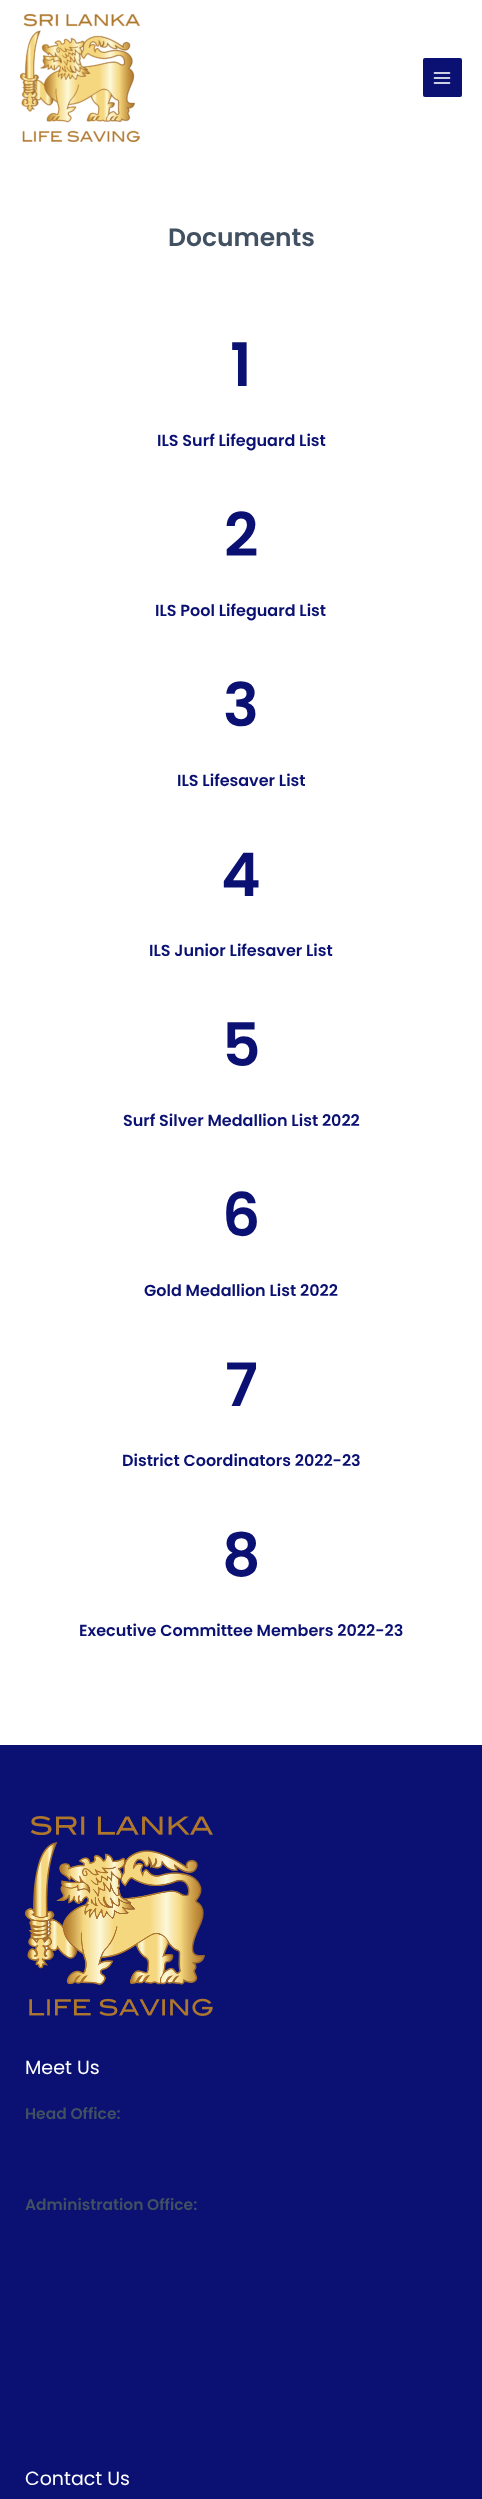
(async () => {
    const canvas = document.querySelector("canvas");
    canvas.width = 482;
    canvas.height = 2499;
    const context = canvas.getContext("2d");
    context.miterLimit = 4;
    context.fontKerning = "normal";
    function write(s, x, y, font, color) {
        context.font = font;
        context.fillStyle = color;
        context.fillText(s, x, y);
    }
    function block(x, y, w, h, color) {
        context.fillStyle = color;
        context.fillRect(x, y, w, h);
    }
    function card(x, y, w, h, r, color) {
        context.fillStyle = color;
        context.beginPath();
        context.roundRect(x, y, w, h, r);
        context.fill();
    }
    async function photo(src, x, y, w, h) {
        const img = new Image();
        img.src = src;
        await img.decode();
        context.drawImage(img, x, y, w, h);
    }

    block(0, 0, 482, 2499, "rgb(255, 255, 255)");
    await photo("media/1.png", 20, 14, 120, 128);
    card(423, 58, 39, 39, 2, "rgb(10, 17, 114)");
    await photo("media/2.png", 433, 72, 18, 12);
    write("Documents", 168, 246, "600 25px Poppins", "rgb(65, 81, 97)");
    write("1", 230, 386, "600 60px Poppins", "rgb(10, 17, 114)");
    write("ILS Surf Lifeguard List", 157, 446, "600 16px Poppins", "rgb(10, 17, 114)");
    write("2", 224, 556, "600 60px Poppins", "rgb(10, 17, 114)");
    write("ILS Pool Lifeguard List", 155, 616, "600 16px Poppins", "rgb(10, 17, 114)");
    write("3", 223, 726, "600 60px Poppins", "rgb(10, 17, 114)");
    write("ILS Lifesaver List", 177, 786, "600 16px Poppins", "rgb(10, 17, 114)");
    write("4", 221, 896, "600 60px Poppins", "rgb(10, 17, 114)");
    write("ILS Junior Lifesaver List", 149, 956, "600 16px Poppins", "rgb(10, 17, 114)");
    write("5", 222, 1066, "600 60px Poppins", "rgb(10, 17, 114)");
    write("Surf Silver Medallion List 2022", 123, 1126, "600 16px Poppins", "rgb(10, 17, 114)");
    write("6", 222, 1236, "600 60px Poppins", "rgb(10, 17, 114)");
    write("Gold Medallion List 2022", 144, 1296, "600 16px Poppins", "rgb(10, 17, 114)");
    write("7", 225, 1406, "600 60px Poppins", "rgb(10, 17, 114)");
    write("District Coordinators 2022-23", 122, 1466, "600 16px Poppins", "rgb(10, 17, 114)");
    write("8", 222, 1576, "600 60px Poppins", "rgb(10, 17, 114)");
    write("Executive Committee Members 2022-23", 79, 1636, "600 16px Poppins", "rgb(10, 17, 114)");
    block(0, 1745, 482, 754, "rgb(10, 17, 114)");
    await photo("media/3.png", 25, 1816, 188, 200);
    write("Meet Us", 25, 2074, "19px Poppins", "rgb(255, 255, 255)");
    write("Head Office:", 25, 2119, "600 15.5px Poppins", "rgb(65, 81, 97)");
    write("Administration Office:", 25, 2210, "600 15.5px Poppins", "rgb(65, 81, 97)");
    write("Contact Us", 25, 2485, "19px Poppins", "rgb(255, 255, 255)");
})();
